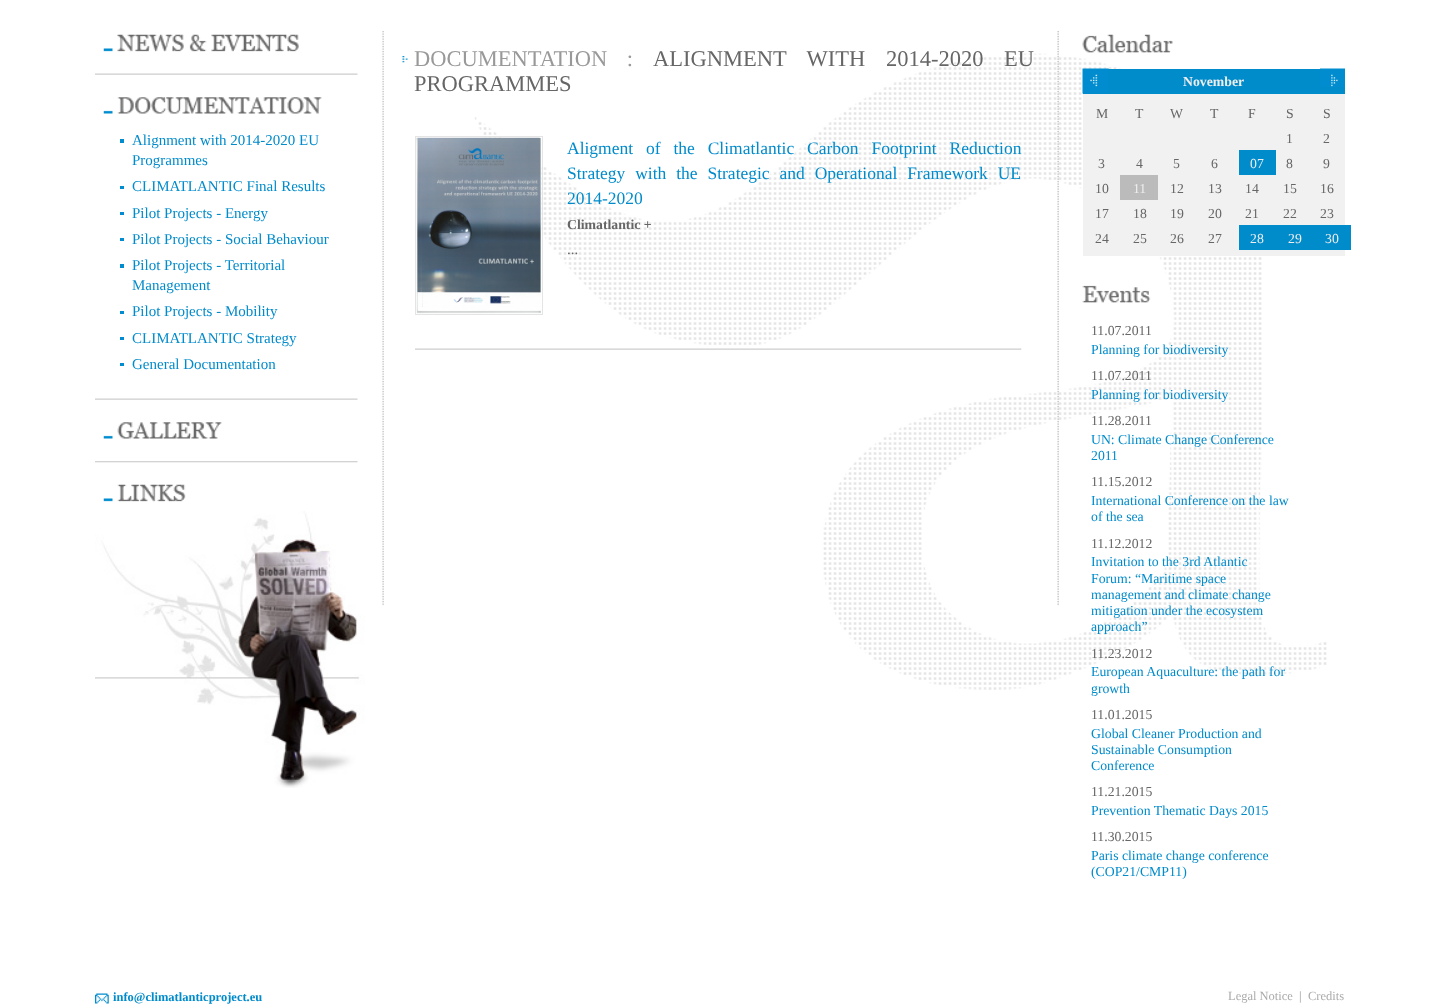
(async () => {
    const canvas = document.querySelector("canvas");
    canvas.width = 1438;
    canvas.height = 1005;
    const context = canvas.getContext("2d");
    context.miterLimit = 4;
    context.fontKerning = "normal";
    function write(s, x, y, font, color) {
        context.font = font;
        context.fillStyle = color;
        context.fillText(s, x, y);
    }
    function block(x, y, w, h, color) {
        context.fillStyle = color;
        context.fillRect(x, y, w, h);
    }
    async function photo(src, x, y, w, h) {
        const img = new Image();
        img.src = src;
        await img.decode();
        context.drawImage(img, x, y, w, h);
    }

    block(0, 0, 1438, 1005, "rgb(255, 255, 255)");
    await photo("media/1.png", 474, 53, 853, 637);
    await photo("media/2.png", 103, 34, 196, 18);
    await photo("media/3.png", 95, 73, 263, 2);
    await photo("media/4.png", 103, 97, 219, 17);
    block(120, 139, 4, 4, "rgb(0, 140, 206)");
    write("Alignment with 2014-2020 EU", 132, 145, "15px Liberation Serif", "rgb(0, 139, 203)");
    write("Programmes", 132, 165, "15px Liberation Serif", "rgb(0, 139, 203)");
    block(120, 186, 4, 3, "rgb(0, 140, 206)");
    write("CLIMATLANTIC Final Results", 132, 191, "15px Liberation Serif", "rgb(0, 139, 203)");
    block(120, 212, 4, 3, "rgb(0, 140, 206)");
    write("Pilot Projects - Energy", 132, 218, "15px Liberation Serif", "rgb(0, 139, 203)");
    block(120, 238, 4, 3, "rgb(0, 140, 206)");
    write("Pilot Projects - Social Behaviour", 132, 244, "15px Liberation Serif", "rgb(0, 139, 203)");
    block(120, 264, 4, 4, "rgb(0, 140, 206)");
    write("Pilot Projects - Territorial", 132, 270, "15px Liberation Serif", "rgb(0, 139, 203)");
    write("Management", 132, 290, "15px Liberation Serif", "rgb(0, 139, 203)");
    block(120, 311, 4, 3, "rgb(0, 140, 206)");
    write("Pilot Projects - Mobility", 132, 316, "15px Liberation Serif", "rgb(0, 139, 203)");
    block(120, 337, 4, 3, "rgb(0, 140, 206)");
    write("CLIMATLANTIC Strategy", 132, 343, "15px Liberation Serif", "rgb(0, 139, 203)");
    block(120, 363, 4, 3, "rgb(0, 140, 206)");
    write("General Documentation", 132, 369, "15px Liberation Serif", "rgb(0, 139, 203)");
    await photo("media/3.png", 95, 398, 263, 2);
    await photo("media/5.png", 103, 422, 119, 17);
    await photo("media/6.png", 95, 461, 263, 2);
    await photo("media/7.png", 103, 484, 83, 18);
    await photo("media/8.png", 95, 511, 270, 277);
    await photo("media/9.png", 382, 31, 677, 575);
    await photo("media/10.png", 402, 56, 6, 7);
    context.wordSpacing = "14px";
    write("DOCUMENTATION :", 414, 66, "22.5px Liberation Serif", "rgb(153, 153, 153)");
    context.wordSpacing = "15px";
    write("ALIGNMENT WITH 2014-2020 EU", 653, 66, "22.5px Liberation Serif", "rgb(102, 102, 102)");
    context.wordSpacing = "0px";
    write("PROGRAMMES", 414, 91, "22.5px Liberation Serif", "rgb(102, 102, 102)");
    context.strokeStyle = "rgb(228, 228, 228)";
    context.strokeRect(415.5, 136.5, 127, 178);
    await photo("media/11.png", 416, 137, 126, 177);
    context.wordSpacing = "8.5px";
    write("Aligment of the Climatlantic Carbon Footprint Reduction", 567, 154, "17.5px Liberation Serif", "rgb(0, 139, 203)");
    context.wordSpacing = "5.5px";
    write("Strategy with the Strategic and Operational Framework UE", 567, 179, "17.5px Liberation Serif", "rgb(0, 139, 203)");
    context.wordSpacing = "0px";
    write("2014-2020", 567, 204, "17.5px Liberation Serif", "rgb(0, 139, 203)");
    write("Climatlantic +", 567, 229, "bold 13.75px Liberation Serif", "rgb(102, 102, 102)");
    write("...", 567, 254, "15px Liberation Serif", "rgb(102, 102, 102)");
    await photo("media/12.png", 415, 348, 607, 2);
    await photo("media/13.png", 1082, 34, 91, 19);
    block(1083, 94, 262, 162, "rgb(241, 241, 241)");
    block(1083, 69, 262, 25, "rgb(0, 139, 203)");
    await photo("media/14.png", 1082, 68, 27, 26);
    write("November", 1183, 86, "bold 13.75px Liberation Serif", "rgb(238, 238, 238)");
    await photo("media/15.png", 1320, 68, 25, 19);
    write("M", 1096, 118, "13.75px Liberation Serif", "rgb(102, 102, 102)");
    write("T", 1135, 118, "13.75px Liberation Serif", "rgb(102, 102, 102)");
    write("W", 1170, 118, "13.75px Liberation Serif", "rgb(102, 102, 102)");
    write("T", 1210, 118, "13.75px Liberation Serif", "rgb(102, 102, 102)");
    write("F", 1248, 118, "13.75px Liberation Serif", "rgb(102, 102, 102)");
    write("S", 1286, 118, "13.75px Liberation Serif", "rgb(102, 102, 102)");
    write("S", 1323, 118, "13.75px Liberation Serif", "rgb(102, 102, 102)");
    write("1", 1286, 143, "13.75px Liberation Serif", "rgb(102, 102, 102)");
    write("2", 1323, 143, "13.75px Liberation Serif", "rgb(102, 102, 102)");
    write("3", 1098, 168, "13.75px Liberation Serif", "rgb(102, 102, 102)");
    write("4", 1136, 168, "13.75px Liberation Serif", "rgb(102, 102, 102)");
    write("5", 1173, 168, "13.75px Liberation Serif", "rgb(102, 102, 102)");
    write("6", 1211, 168, "13.75px Liberation Serif", "rgb(102, 102, 102)");
    block(1239, 150, 37, 25, "rgb(0, 139, 203)");
    write("07", 1250, 168, "13.75px Liberation Serif", "rgb(238, 238, 238)");
    write("8", 1286, 168, "13.75px Liberation Serif", "rgb(102, 102, 102)");
    write("9", 1323, 168, "13.75px Liberation Serif", "rgb(102, 102, 102)");
    write("10", 1095, 193, "13.75px Liberation Serif", "rgb(102, 102, 102)");
    block(1120, 175, 38, 25, "rgb(187, 187, 187)");
    write("11", 1133, 193, "13.75px Liberation Serif", "rgb(238, 238, 238)");
    write("12", 1170, 193, "13.75px Liberation Serif", "rgb(102, 102, 102)");
    write("13", 1208, 193, "13.75px Liberation Serif", "rgb(102, 102, 102)");
    write("14", 1245, 193, "13.75px Liberation Serif", "rgb(102, 102, 102)");
    write("15", 1283, 193, "13.75px Liberation Serif", "rgb(102, 102, 102)");
    write("16", 1320, 193, "13.75px Liberation Serif", "rgb(102, 102, 102)");
    write("17", 1095, 218, "13.75px Liberation Serif", "rgb(102, 102, 102)");
    write("18", 1133, 218, "13.75px Liberation Serif", "rgb(102, 102, 102)");
    write("19", 1170, 218, "13.75px Liberation Serif", "rgb(102, 102, 102)");
    write("20", 1208, 218, "13.75px Liberation Serif", "rgb(102, 102, 102)");
    write("21", 1245, 218, "13.75px Liberation Serif", "rgb(102, 102, 102)");
    write("22", 1283, 218, "13.75px Liberation Serif", "rgb(102, 102, 102)");
    write("23", 1320, 218, "13.75px Liberation Serif", "rgb(102, 102, 102)");
    write("24", 1095, 243, "13.75px Liberation Serif", "rgb(102, 102, 102)");
    write("25", 1133, 243, "13.75px Liberation Serif", "rgb(102, 102, 102)");
    write("26", 1170, 243, "13.75px Liberation Serif", "rgb(102, 102, 102)");
    write("27", 1208, 243, "13.75px Liberation Serif", "rgb(102, 102, 102)");
    block(1239, 225, 112, 25, "rgb(0, 139, 203)");
    write("28", 1250, 243, "13.75px Liberation Serif", "rgb(238, 238, 238)");
    write("29", 1288, 243, "13.75px Liberation Serif", "rgb(238, 238, 238)");
    write("30", 1325, 243, "13.75px Liberation Serif", "rgb(238, 238, 238)");
    await photo("media/16.png", 1082, 285, 69, 18);
    write("11.07.2011", 1091, 335, "13.75px Liberation Serif", "rgb(102, 102, 102)");
    write("Planning for biodiversity", 1091, 354, "13.75px Liberation Serif", "rgb(0, 139, 203)");
    write("11.07.2011", 1091, 380, "13.75px Liberation Serif", "rgb(102, 102, 102)");
    write("Planning for biodiversity", 1091, 399, "13.75px Liberation Serif", "rgb(0, 139, 203)");
    write("11.28.2011", 1091, 425, "13.75px Liberation Serif", "rgb(102, 102, 102)");
    write("UN: Climate Change Conference", 1091, 444, "13.75px Liberation Serif", "rgb(0, 139, 203)");
    write("2011", 1091, 460, "13.75px Liberation Serif", "rgb(0, 139, 203)");
    write("11.15.2012", 1091, 486, "13.75px Liberation Serif", "rgb(102, 102, 102)");
    write("International Conference on the law", 1091, 505, "13.75px Liberation Serif", "rgb(0, 139, 203)");
    write("of the sea", 1091, 521, "13.75px Liberation Serif", "rgb(0, 139, 203)");
    write("11.12.2012", 1091, 548, "13.75px Liberation Serif", "rgb(102, 102, 102)");
    write("Invitation to the 3rd Atlantic", 1091, 566, "13.75px Liberation Serif", "rgb(0, 139, 203)");
    write("Forum: “Maritime space", 1091, 583, "13.75px Liberation Serif", "rgb(0, 139, 203)");
    write("management and climate change", 1091, 599, "13.75px Liberation Serif", "rgb(0, 139, 203)");
    write("mitigation under the ecosystem", 1091, 615, "13.75px Liberation Serif", "rgb(0, 139, 203)");
    write("approach”", 1091, 631, "13.75px Liberation Serif", "rgb(0, 139, 203)");
    write("11.23.2012", 1091, 658, "13.75px Liberation Serif", "rgb(102, 102, 102)");
    write("European Aquaculture: the path for", 1091, 676, "13.75px Liberation Serif", "rgb(0, 139, 203)");
    write("growth", 1091, 693, "13.75px Liberation Serif", "rgb(0, 139, 203)");
    write("11.01.2015", 1091, 719, "13.75px Liberation Serif", "rgb(102, 102, 102)");
    write("Global Cleaner Production and", 1091, 738, "13.75px Liberation Serif", "rgb(0, 139, 203)");
    write("Sustainable Consumption", 1091, 754, "13.75px Liberation Serif", "rgb(0, 139, 203)");
    write("Conference", 1091, 770, "13.75px Liberation Serif", "rgb(0, 139, 203)");
    write("11.21.2015", 1091, 796, "13.75px Liberation Serif", "rgb(102, 102, 102)");
    write("Prevention Thematic Days 2015", 1091, 815, "13.75px Liberation Serif", "rgb(0, 139, 203)");
    write("11.30.2015", 1091, 841, "13.75px Liberation Serif", "rgb(102, 102, 102)");
    write("Paris climate change conference", 1091, 860, "13.75px Liberation Serif", "rgb(0, 139, 203)");
    write("(COP21/CMP11)", 1091, 876, "13.75px Liberation Serif", "rgb(0, 139, 203)");
    await photo("media/17.png", 95, 993, 14, 11);
    write("info@climatlanticproject.eu", 113, 1001, "bold 12.5px Liberation Serif", "rgb(0, 139, 203)");
    write("Legal Notice", 1228, 1000, "12.5px Liberation Serif", "rgb(170, 170, 170)");
    write("|", 1299, 1000, "12.5px Liberation Serif", "rgb(153, 153, 153)");
    write("Credits", 1308, 1000, "12.5px Liberation Serif", "rgb(170, 170, 170)");
})();
